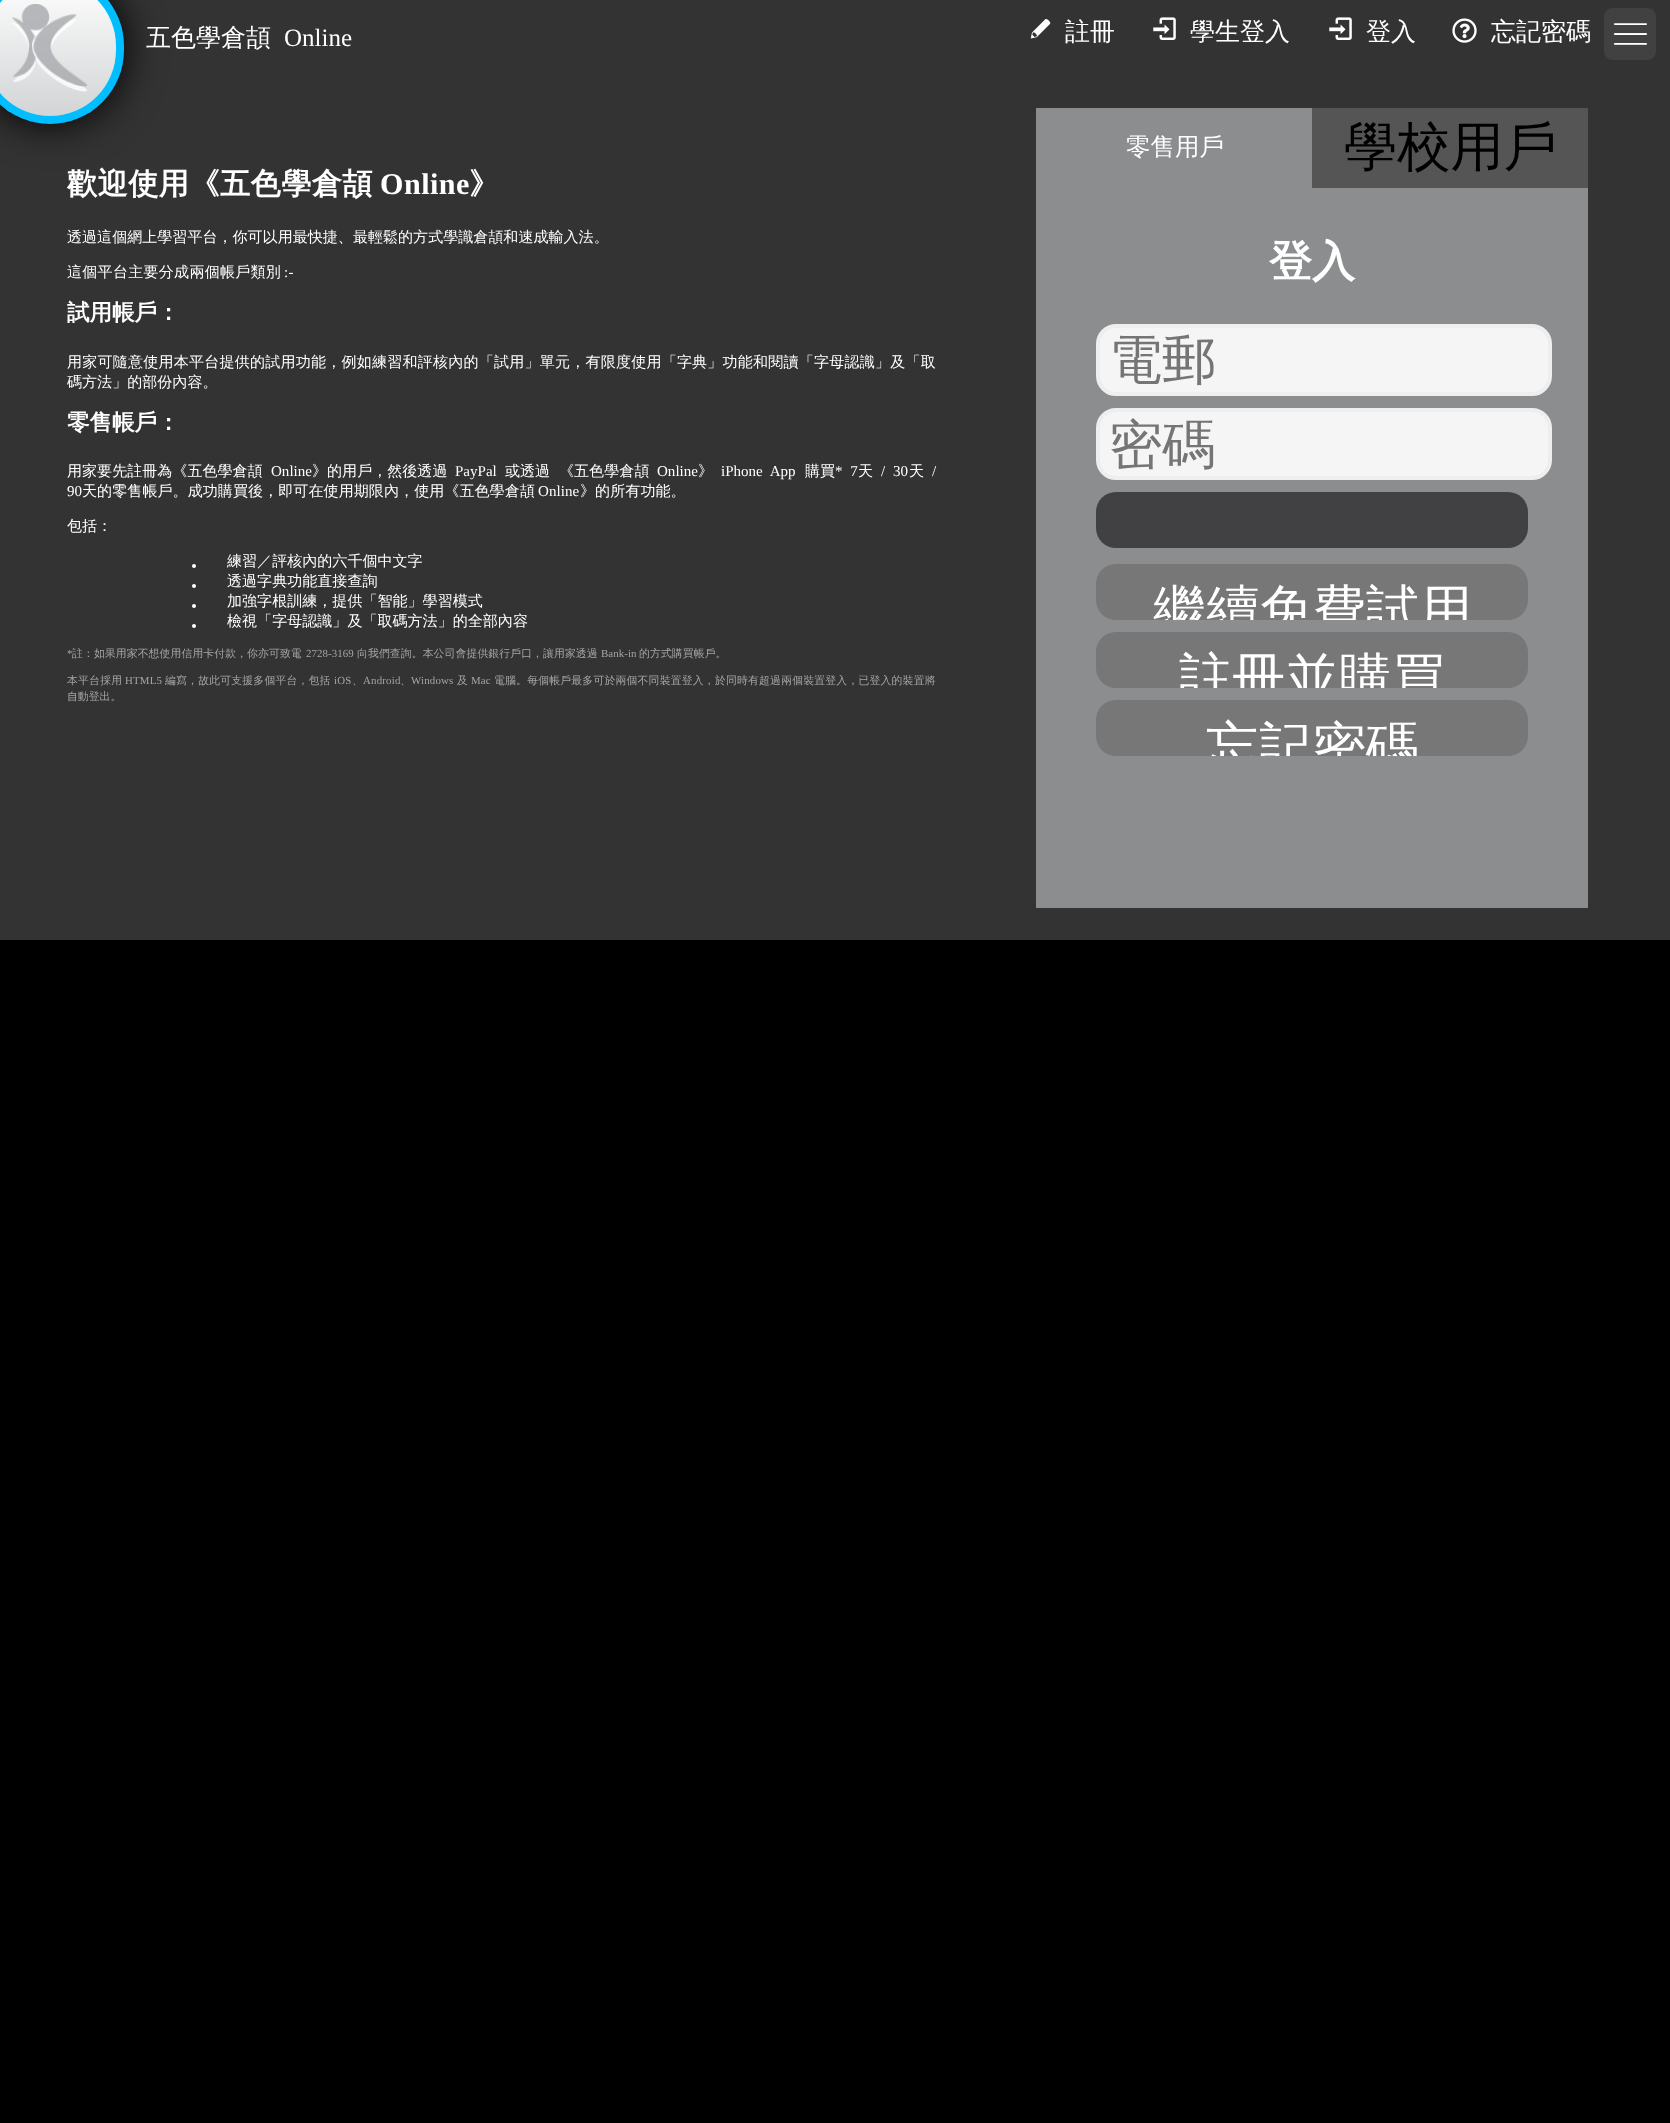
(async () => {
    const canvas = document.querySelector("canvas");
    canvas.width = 1670;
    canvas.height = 2123;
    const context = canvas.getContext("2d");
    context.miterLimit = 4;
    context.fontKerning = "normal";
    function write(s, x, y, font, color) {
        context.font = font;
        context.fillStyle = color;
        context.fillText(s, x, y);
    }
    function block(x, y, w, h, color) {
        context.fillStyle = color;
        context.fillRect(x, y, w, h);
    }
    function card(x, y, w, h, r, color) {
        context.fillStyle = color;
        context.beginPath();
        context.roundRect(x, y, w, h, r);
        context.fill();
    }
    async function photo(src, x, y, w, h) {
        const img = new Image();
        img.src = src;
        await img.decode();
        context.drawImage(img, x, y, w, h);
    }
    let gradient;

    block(0, 0, 1670, 2123, "rgb(0, 0, 0)");
    block(0, 0, 1670, 940, "rgb(51, 51, 51)");
    context.fillStyle = "rgb(0, 0, 0)";
    context.filter = "blur(20px)";
    context.beginPath();
    context.roundRect(-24, -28, 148, 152, 74);
    context.fill();
    context.filter = "none";
    await photo("media/2.png", 6, 26, 116, 87);
    card(-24, -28, 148, 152, 74, "rgb(0, 190, 255)");
    gradient = context.createLinearGradient(-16, 116, -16, -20);
    gradient.addColorStop(0, "rgb(210, 212, 213)");
    gradient.addColorStop(1, "rgb(254, 254, 254)");
    context.fillStyle = gradient;
    context.beginPath();
    context.roundRect(-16, -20, 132, 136, 66);
    context.fill();
    await photo("media/1.png", 12, 4, 75, 88);
    write("五色學倉頡", 146, 46, "500 25px WenQuanYi Zen Hei", "rgb(255, 255, 255)");
    write("Online", 284, 46, "25px Liberation Serif", "rgb(255, 255, 255)");
    await photo("media/3.png", 1030, 19, 21, 20);
    write("註冊", 1065, 40, "500 25px WenQuanYi Zen Hei", "rgb(255, 255, 255)");
    await photo("media/4.png", 1153, 17, 23, 23);
    write("學生登入", 1190, 40, "500 25px WenQuanYi Zen Hei", "rgb(255, 255, 255)");
    await photo("media/4.png", 1329, 17, 23, 23);
    write("登入", 1366, 40, "500 25px WenQuanYi Zen Hei", "rgb(255, 255, 255)");
    await photo("media/5.png", 1452, 18, 25, 25);
    write("忘記密碼", 1491, 40, "500 25px WenQuanYi Zen Hei", "rgb(255, 255, 255)");
    await photo("media/6.png", 1604, 8, 52, 52);
    context.letterSpacing = "0.5px";
    write("歡迎使用《五色學倉頡", 67, 194, "bold 30.1px WenQuanYi Zen Hei", "rgb(255, 255, 255)");
    write("Online", 380, 194, "bold 30.1px Liberation Serif", "rgb(255, 255, 255)");
    write("》", 469, 194, "bold 30.1px WenQuanYi Zen Hei", "rgb(255, 255, 255)");
    context.letterSpacing = "0px";
    write("透過這個網上學習平台，你可以用最快捷、最輕鬆的方式學識倉頡和速成輸入法。", 67, 242, "500 15.05px WenQuanYi Zen Hei", "rgb(255, 255, 255)");
    context.letterSpacing = "0.25px";
    write("這個平台主要分成兩個帳戶類別", 67, 277, "500 15.05px WenQuanYi Zen Hei", "rgb(255, 255, 255)");
    write(":-", 284, 277, "15.05px Liberation Serif", "rgb(255, 255, 255)");
    context.letterSpacing = "0px";
    write("試用帳戶：", 67, 320, "bold 22.5px WenQuanYi Zen Hei", "rgb(255, 255, 255)");
    context.letterSpacing = "0.2px";
    write("用家可隨意使用本平台提供的試用功能，例如練習和評核內的「試用」單元，有限度使用「字典」功能和閱讀「字母認識」及「取", 67, 367, "500 15.05px WenQuanYi Zen Hei", "rgb(255, 255, 255)");
    context.letterSpacing = "0px";
    write("碼方法」的部份內容。", 67, 387, "500 15.05px WenQuanYi Zen Hei", "rgb(255, 255, 255)");
    write("零售帳戶：", 67, 430, "bold 22.5px WenQuanYi Zen Hei", "rgb(255, 255, 255)");
    write("用家要先註冊為《五色學倉頡", 67, 476, "500 15.05px WenQuanYi Zen Hei", "rgb(255, 255, 255)");
    write("Online", 271, 476, "15.05px Liberation Serif", "rgb(255, 255, 255)");
    write("》的用戶，然後透過", 312, 476, "500 15.05px WenQuanYi Zen Hei", "rgb(255, 255, 255)");
    write("PayPal", 455, 476, "15.05px Liberation Serif", "rgb(255, 255, 255)");
    write("或透過", 505, 476, "500 15.05px WenQuanYi Zen Hei", "rgb(255, 255, 255)");
    write("《五色學倉頡", 559, 476, "500 15.05px WenQuanYi Zen Hei", "rgb(255, 255, 255)");
    write("Online", 657, 476, "15.05px Liberation Serif", "rgb(255, 255, 255)");
    write("》", 698, 476, "500 15.05px WenQuanYi Zen Hei", "rgb(255, 255, 255)");
    context.wordSpacing = "4px";
    write("iPhone App", 721, 476, "15.05px Liberation Serif", "rgb(255, 255, 255)");
    context.wordSpacing = "0px";
    write("購買", 805, 476, "500 15.05px WenQuanYi Zen Hei", "rgb(255, 255, 255)");
    context.wordSpacing = "4px";
    write("* 7", 835, 476, "15.05px Liberation Serif", "rgb(255, 255, 255)");
    context.wordSpacing = "0px";
    write("天", 858, 476, "500 15.05px WenQuanYi Zen Hei", "rgb(255, 255, 255)");
    context.wordSpacing = "4px";
    write("/ 30", 881, 476, "15.05px Liberation Serif", "rgb(255, 255, 255)");
    context.wordSpacing = "0px";
    write("天", 909, 476, "500 15.05px WenQuanYi Zen Hei", "rgb(255, 255, 255)");
    write("/", 932, 476, "15.05px Liberation Serif", "rgb(255, 255, 255)");
    context.letterSpacing = "0.05px";
    write("90", 67, 496, "15.05px Liberation Serif", "rgb(255, 255, 255)");
    write("天的零售帳戶。成功購買後，即可在使用期限內，使用《五色學倉頡", 82, 496, "500 15.05px WenQuanYi Zen Hei", "rgb(255, 255, 255)");
    write("Online", 538, 496, "15.05px Liberation Serif", "rgb(255, 255, 255)");
    write("》的所有功能。", 580, 496, "500 15.05px WenQuanYi Zen Hei", "rgb(255, 255, 255)");
    context.letterSpacing = "0px";
    write("包括：", 67, 531, "500 15.05px WenQuanYi Zen Hei", "rgb(255, 255, 255)");
    context.beginPath();
    context.arc(194, 566, 2, 0, Math.PI * 2);
    context.fill();
    write("練習／評核內的六千個中文字", 227, 566, "500 15.05px WenQuanYi Zen Hei", "rgb(255, 255, 255)");
    context.beginPath();
    context.arc(194, 586, 2, 0, Math.PI * 2);
    context.fill();
    write("透過字典功能直接查詢", 227, 586, "500 15.05px WenQuanYi Zen Hei", "rgb(255, 255, 255)");
    context.beginPath();
    context.arc(194, 606, 2, 0, Math.PI * 2);
    context.fill();
    write("加強字根訓練，提供「智能」學習模式", 227, 606, "500 15.05px WenQuanYi Zen Hei", "rgb(255, 255, 255)");
    context.beginPath();
    context.arc(194, 626, 2, 0, Math.PI * 2);
    context.fill();
    write("檢視「字母認識」及「取碼方法」的全部內容", 227, 626, "500 15.05px WenQuanYi Zen Hei", "rgb(255, 255, 255)");
    context.letterSpacing = "0.1px";
    write("*", 67, 657, "10.85px Liberation Serif", "rgb(166, 166, 166)");
    write("註：如果用家不想使用信用卡付款，你亦可致電", 72, 657, "500 10.85px WenQuanYi Zen Hei", "rgb(166, 166, 166)");
    write("2728-3169", 306, 657, "10.85px Liberation Serif", "rgb(166, 166, 166)");
    write("向我們查詢。本公司會提供銀行戶口，讓用家透過", 357, 657, "500 10.85px WenQuanYi Zen Hei", "rgb(166, 166, 166)");
    write("Bank-in", 601, 657, "10.85px Liberation Serif", "rgb(166, 166, 166)");
    write("的方式購買帳戶。", 639, 657, "500 10.85px WenQuanYi Zen Hei", "rgb(166, 166, 166)");
    context.letterSpacing = "0.2px";
    write("本平台採用", 67, 684, "500 10.85px WenQuanYi Zen Hei", "rgb(166, 166, 166)");
    write("HTML5", 125, 684, "10.85px Liberation Serif", "rgb(166, 166, 166)");
    write("編寫，故此可支援多個平台，包括", 165, 684, "500 10.85px WenQuanYi Zen Hei", "rgb(166, 166, 166)");
    write("iOS", 334, 684, "10.85px Liberation Serif", "rgb(166, 166, 166)");
    write("、", 352, 684, "500 10.85px WenQuanYi Zen Hei", "rgb(166, 166, 166)");
    write("Android", 363, 684, "10.85px Liberation Serif", "rgb(166, 166, 166)");
    write("、", 400, 684, "500 10.85px WenQuanYi Zen Hei", "rgb(166, 166, 166)");
    write("Windows", 411, 684, "10.85px Liberation Serif", "rgb(166, 166, 166)");
    write("及", 457, 684, "500 10.85px WenQuanYi Zen Hei", "rgb(166, 166, 166)");
    write("Mac", 471, 684, "10.85px Liberation Serif", "rgb(166, 166, 166)");
    write("電腦。每個帳戶最多可於兩個不同裝置登入，於同時有超過兩個裝置登入，已登入的裝置將", 494, 684, "500 10.85px WenQuanYi Zen Hei", "rgb(166, 166, 166)");
    context.letterSpacing = "0px";
    write("自動登出。", 67, 700, "500 10.85px WenQuanYi Zen Hei", "rgb(166, 166, 166)");
    block(1036, 108, 552, 800, "rgb(139, 141, 143)");
    write("零售用戶", 1126, 155, "500 24.5px WenQuanYi Zen Hei", "rgb(255, 255, 255)");
    block(1312, 108, 276, 80, "rgb(85, 85, 85)");
    write("學校用戶", 1344, 165, "500 53.25px WenQuanYi Zen Hei", "rgb(0, 0, 0)");
    write("登入", 1269, 276, "bold 43px WenQuanYi Zen Hei", "rgb(255, 255, 255)");
    context.fillStyle = "rgb(245, 245, 245)";
    context.beginPath();
    context.roundRect(1098, 326, 452, 68, 18);
    context.fill();
    context.strokeStyle = "rgb(238, 238, 238)";
    context.lineWidth = 4;
    context.stroke();
    write("電郵", 1109, 378, "500 53.25px WenQuanYi Zen Hei", "rgb(117, 117, 117)");
    context.fillStyle = "rgb(245, 245, 245)";
    context.beginPath();
    context.roundRect(1098, 410, 452, 68, 18);
    context.fill();
    context.stroke();
    write("密碼", 1109, 463, "500 53.25px WenQuanYi Zen Hei", "rgb(117, 117, 117)");
    card(1096, 492, 432, 56, 20, "rgb(65, 64, 66)");
    card(1096, 564, 432, 56, 20, "rgb(119, 119, 119)");
    context.save();
    context.beginPath();
    context.roundRect(1096, 564, 432, 56, 20);
    context.clip();
    write("繼續免費試用", 1153, 628, "500 53.25px WenQuanYi Zen Hei", "rgb(255, 255, 255)");
    context.restore();
    card(1096, 632, 432, 56, 20, "rgb(119, 119, 119)");
    context.save();
    context.beginPath();
    context.roundRect(1096, 632, 432, 56, 20);
    context.clip();
    write("註冊並購買", 1179, 696, "500 53.25px WenQuanYi Zen Hei", "rgb(255, 255, 255)");
    context.restore();
    card(1096, 700, 432, 56, 20, "rgb(119, 119, 119)");
    context.save();
    context.beginPath();
    context.roundRect(1096, 700, 432, 56, 20);
    context.clip();
    write("忘記密碼", 1206, 765, "500 53.25px WenQuanYi Zen Hei", "rgb(255, 255, 255)");
    context.restore();
})();
